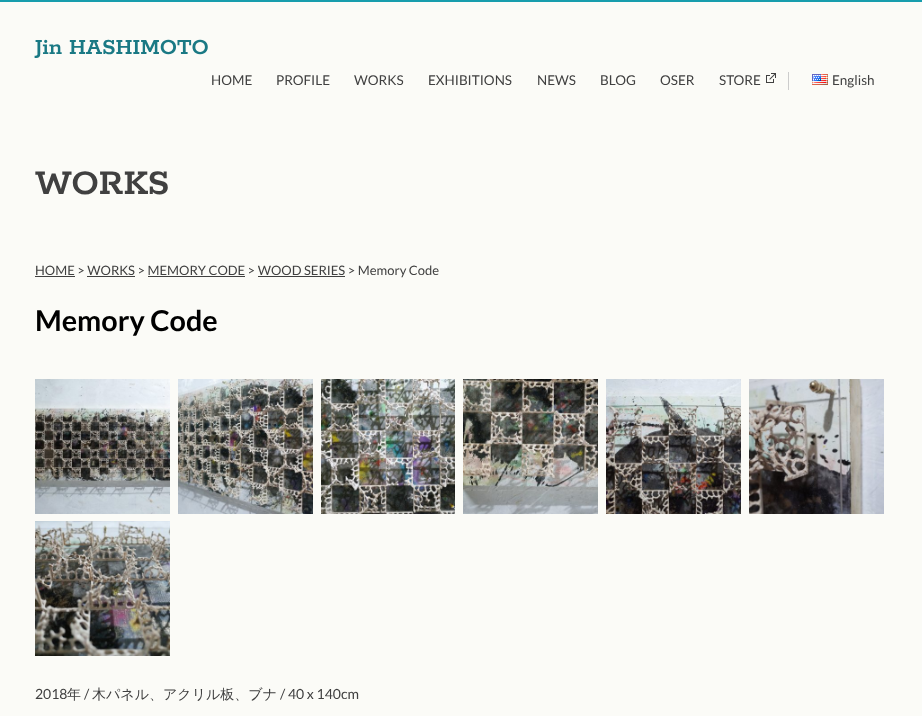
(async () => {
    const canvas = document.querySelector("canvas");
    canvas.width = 922;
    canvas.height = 716;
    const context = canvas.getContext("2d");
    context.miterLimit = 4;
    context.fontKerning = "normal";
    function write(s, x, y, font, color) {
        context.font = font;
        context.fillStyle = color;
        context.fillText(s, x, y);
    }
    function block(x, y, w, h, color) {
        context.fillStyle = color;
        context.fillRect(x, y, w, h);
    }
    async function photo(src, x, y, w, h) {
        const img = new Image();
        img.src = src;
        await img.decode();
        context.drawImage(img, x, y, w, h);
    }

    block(0, 0, 922, 716, "rgb(251, 251, 247)");
    block(0, 0, 922, 2, "rgb(23, 157, 173)");
    write("Jin HASHIMOTO", 35, 54, "600 24px Rokkitt", "rgb(26, 121, 132)");
    write("HOME", 211, 85, "13.5px Lato", "rgb(64, 64, 64)");
    write("PROFILE", 276, 85, "13.5px Lato", "rgb(64, 64, 64)");
    write("WORKS", 354, 85, "13.5px Lato", "rgb(64, 64, 64)");
    write("EXHIBITIONS", 428, 85, "13.5px Lato", "rgb(64, 64, 64)");
    write("NEWS", 537, 85, "13.5px Lato", "rgb(64, 64, 64)");
    write("BLOG", 600, 85, "13.5px Lato", "rgb(64, 64, 64)");
    write("OSER", 660, 85, "13.5px Lato", "rgb(64, 64, 64)");
    await photo("media/1.png", 766, 73, 10, 10);
    write("STORE", 719, 85, "13.5px Lato", "rgb(64, 64, 64)");
    block(788, 72, 1, 18, "rgb(204, 204, 204)");
    await photo("media/2.png", 812, 74, 16, 11);
    write("English", 832, 85, "13.5px Lato", "rgb(64, 64, 64)");
    write("WORKS", 35, 194, "600 38.5px Rokkitt", "rgb(64, 64, 64)");
    block(35, 276, 40, 1, "rgb(64, 64, 64)");
    write("HOME > WORKS > MEMORY CODE > WOOD SERIES > Memory Code", 35, 275, "13px Lato", "rgb(64, 64, 64)");
    block(87, 276, 48, 1, "rgb(64, 64, 64)");
    block(148, 276, 97, 1, "rgb(64, 64, 64)");
    block(258, 276, 87, 1, "rgb(64, 64, 64)");
    write("Memory Code", 35, 331, "bold 28.75px Lato", "rgb(0, 0, 0)");
    await photo("media/3.png", 35, 379, 135, 135);
    await photo("media/4.png", 178, 379, 135, 135);
    await photo("media/5.png", 321, 379, 134, 135);
    await photo("media/6.png", 463, 379, 135, 135);
    await photo("media/7.png", 606, 379, 135, 135);
    await photo("media/8.png", 749, 379, 135, 135);
    await photo("media/9.png", 35, 521, 135, 135);
    write("2018", 35, 699, "14px Lato", "rgb(64, 64, 64)");
    write("年", 67, 699, "500 14px WenQuanYi Zen Hei", "rgb(64, 64, 64)");
    write("/", 84, 699, "14px Lato", "rgb(64, 64, 64)");
    write("木パネル、アクリル板、ブナ", 92, 699, "500 14px WenQuanYi Zen Hei", "rgb(64, 64, 64)");
    write("/ 40 x 140cm", 280, 699, "14px Lato", "rgb(64, 64, 64)");
})();
